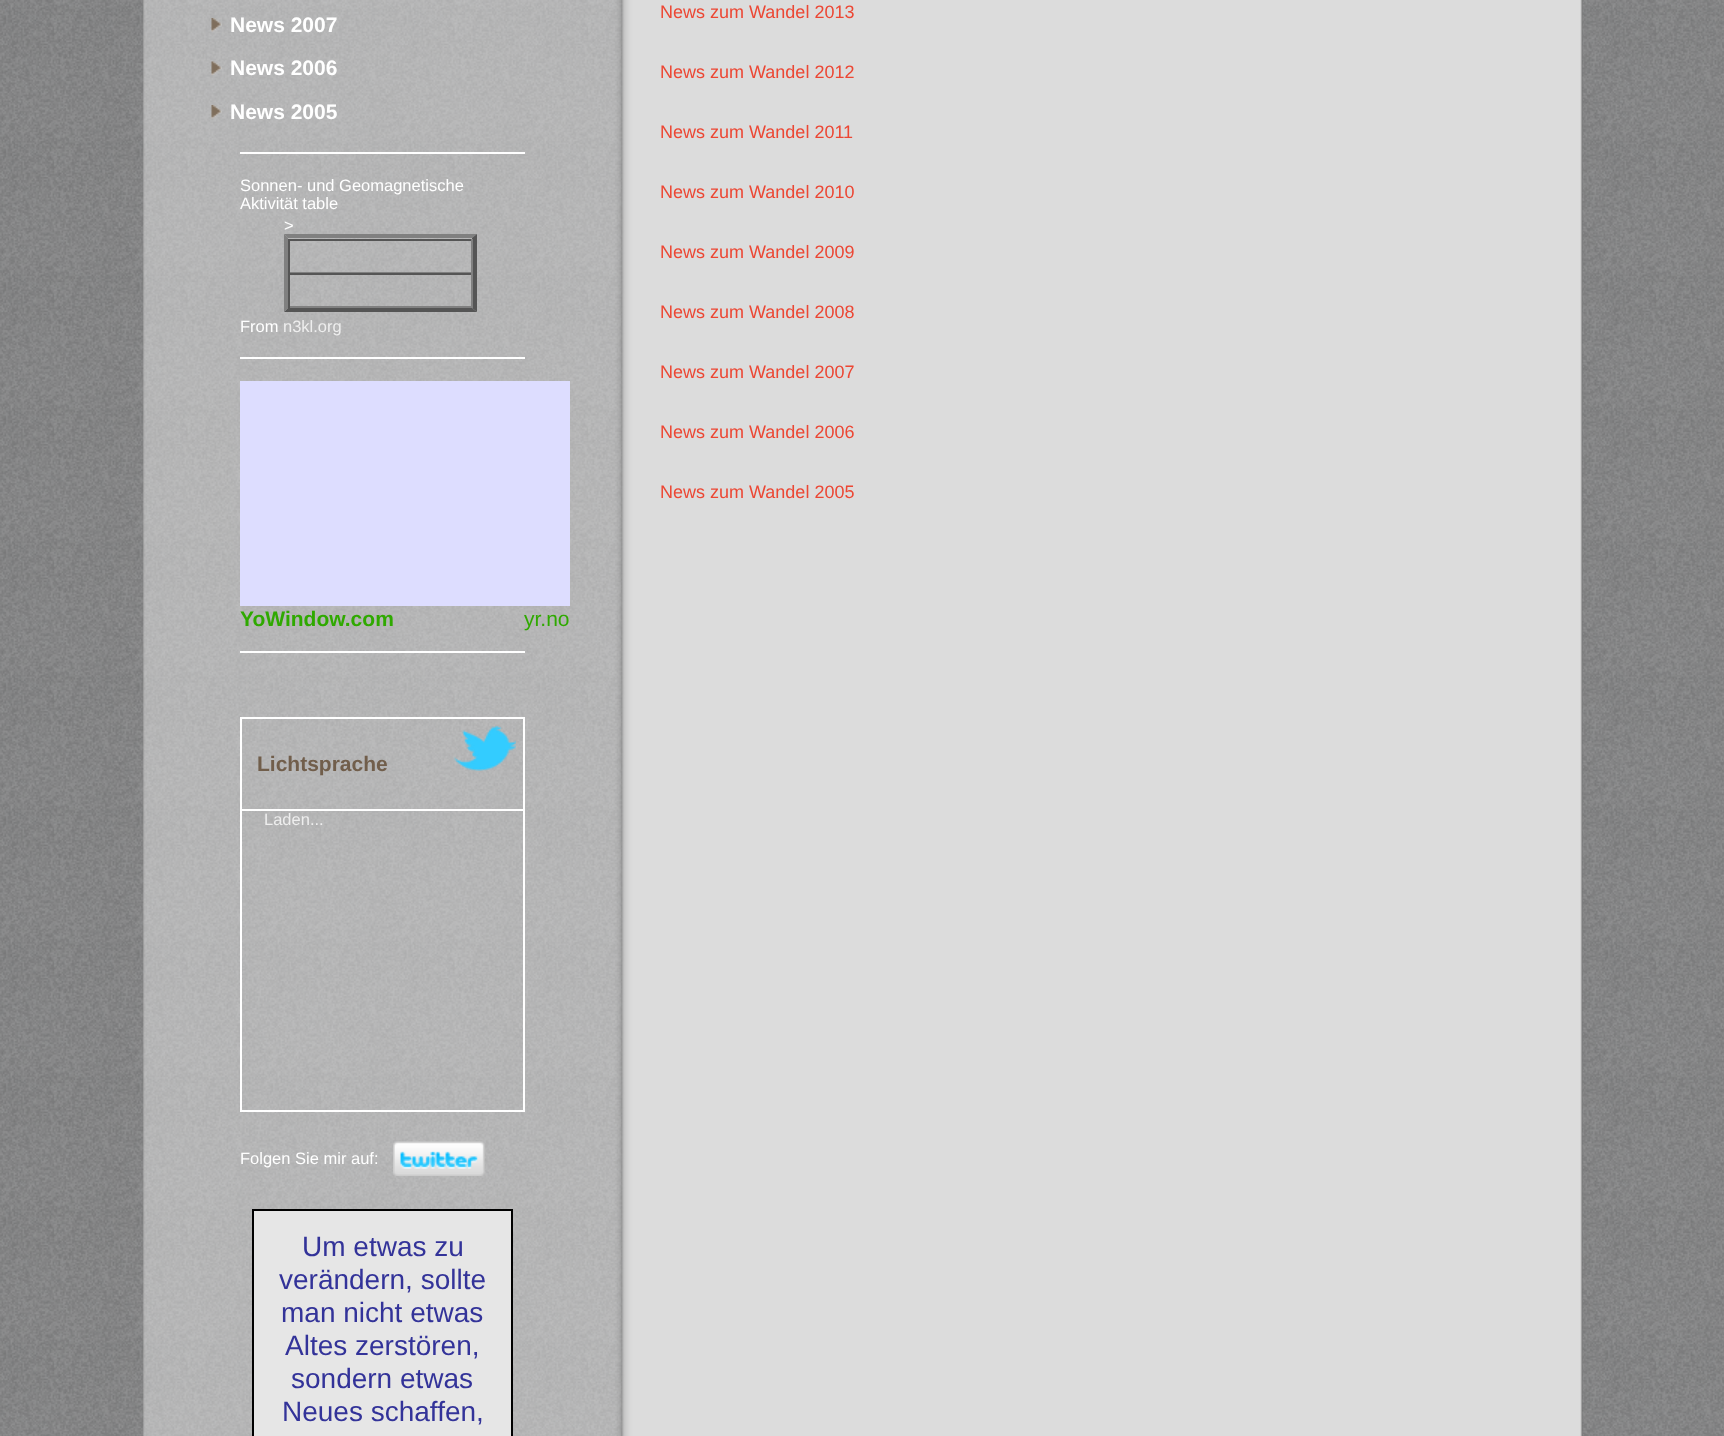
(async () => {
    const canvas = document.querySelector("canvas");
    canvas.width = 1724;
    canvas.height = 1436;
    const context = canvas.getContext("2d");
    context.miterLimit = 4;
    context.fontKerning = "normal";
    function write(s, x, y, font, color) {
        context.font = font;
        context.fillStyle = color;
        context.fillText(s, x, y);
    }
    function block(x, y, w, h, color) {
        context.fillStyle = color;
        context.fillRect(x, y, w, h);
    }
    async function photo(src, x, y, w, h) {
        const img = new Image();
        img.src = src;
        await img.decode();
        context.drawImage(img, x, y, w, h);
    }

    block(0, 0, 1724, 1436, "rgb(255, 255, 255)");
    await photo("media/1.png", 0, 0, 1724, 1436);
    await photo("media/2.png", 143, 0, 1440, 1436);
    await photo("media/3.png", 211, 18, 11, 14);
    write("News 2007", 230, 32, "bold 21px Liberation Sans", "rgb(255, 255, 255)");
    await photo("media/4.png", 211, 61, 11, 14);
    write("News 2006", 230, 75, "bold 21px Liberation Sans", "rgb(255, 255, 255)");
    await photo("media/5.png", 211, 105, 11, 14);
    write("News 2005", 230, 119, "bold 21px Liberation Sans", "rgb(255, 255, 255)");
    block(240, 152, 285, 2, "rgb(255, 255, 255)");
    write("Sonnen- und Geomagnetische", 240, 191, "16.5px Liberation Sans", "rgb(255, 255, 255)");
    write("Aktivität table", 240, 209, "16.5px Liberation Sans", "rgb(255, 255, 255)");
    write(">", 284, 231, "16.5px Liberation Sans", "rgb(255, 255, 255)");
    context.fillStyle = "rgb(128, 128, 128)";
    context.beginPath();
    context.moveTo(284, 234);
    context.lineTo(477, 234);
    context.lineTo(472, 238);
    context.lineTo(288, 238);
    context.closePath();
    context.fill();
    context.fillStyle = "rgb(85, 85, 85)";
    context.beginPath();
    context.moveTo(477, 234);
    context.lineTo(477, 312);
    context.lineTo(472, 308);
    context.lineTo(472, 238);
    context.closePath();
    context.fill();
    context.beginPath();
    context.moveTo(477, 312);
    context.lineTo(284, 312);
    context.lineTo(288, 308);
    context.lineTo(472, 308);
    context.closePath();
    context.fill();
    context.fillStyle = "rgb(128, 128, 128)";
    context.beginPath();
    context.moveTo(284, 312);
    context.lineTo(284, 234);
    context.lineTo(288, 238);
    context.lineTo(288, 308);
    context.closePath();
    context.fill();
    block(288, 239, 185, 2, "rgb(85, 85, 85)");
    block(471, 239, 2, 34, "rgb(128, 128, 128)");
    block(288, 272, 185, 1, "rgb(128, 128, 128)");
    block(288, 239, 2, 34, "rgb(85, 85, 85)");
    block(288, 273, 185, 2, "rgb(85, 85, 85)");
    block(471, 273, 2, 35, "rgb(128, 128, 128)");
    block(288, 306, 185, 2, "rgb(128, 128, 128)");
    block(288, 273, 2, 35, "rgb(85, 85, 85)");
    write("From", 240, 332, "16.5px Liberation Sans", "rgb(255, 255, 255)");
    write("n3kl.org", 283, 332, "16.5px Liberation Sans", "rgb(238, 238, 238)");
    block(240, 357, 285, 2, "rgb(255, 255, 255)");
    block(240, 381, 330, 225, "rgb(221, 221, 255)");
    write("YoWindow.com", 240, 626, "bold 21px Liberation Sans", "rgb(47, 169, 0)");
    write("yr.no", 524, 626, "21px Liberation Sans", "rgb(47, 169, 0)");
    block(240, 651, 285, 2, "rgb(255, 255, 255)");
    context.strokeStyle = "rgb(255, 255, 255)";
    context.lineWidth = 2;
    context.strokeRect(241, 718, 283, 393);
    write("Lichtsprache", 257, 771, "bold 21px Liberation Sans", "rgb(113, 94, 75)");
    await photo("media/6.png", 453, 726, 63, 45);
    block(242, 809, 282, 2, "rgb(255, 255, 255)");
    write("Laden...", 264, 825, "16.5px Liberation Sans", "rgb(238, 238, 238)");
    write("Folgen Sie mir auf:", 240, 1164, "16.5px Liberation Sans", "rgb(255, 255, 255)");
    await photo("media/7.png", 393, 1141, 92, 35);
    context.fillStyle = "rgb(230, 230, 230)";
    context.beginPath();
    context.rect(253, 1210, 259, 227);
    context.fill();
    context.strokeStyle = "rgb(0, 0, 0)";
    context.stroke();
    write("Um etwas zu", 302, 1256, "28px Liberation Sans", "rgb(51, 51, 153)");
    write("verändern, sollte", 279, 1289, "28px Liberation Sans", "rgb(51, 51, 153)");
    write("man nicht etwas", 281, 1322, "28px Liberation Sans", "rgb(51, 51, 153)");
    write("Altes zerstören,", 285, 1355, "28px Liberation Sans", "rgb(51, 51, 153)");
    write("sondern etwas", 291, 1388, "28px Liberation Sans", "rgb(51, 51, 153)");
    write("Neues schaffen,", 282, 1421, "28px Liberation Sans", "rgb(51, 51, 153)");
    write("News zum Wandel 2013", 660, 18, "18px Liberation Sans", "rgb(236, 71, 52)");
    write("News zum Wandel 2012", 660, 78, "18px Liberation Sans", "rgb(236, 71, 52)");
    write("News zum Wandel 2011", 660, 138, "18px Liberation Sans", "rgb(236, 71, 52)");
    write("News zum Wandel 2010", 660, 198, "18px Liberation Sans", "rgb(236, 71, 52)");
    write("News zum Wandel 2009", 660, 258, "18px Liberation Sans", "rgb(236, 71, 52)");
    write("News zum Wandel 2008", 660, 318, "18px Liberation Sans", "rgb(236, 71, 52)");
    write("News zum Wandel 2007", 660, 378, "18px Liberation Sans", "rgb(236, 71, 52)");
    write("News zum Wandel 2006", 660, 438, "18px Liberation Sans", "rgb(236, 71, 52)");
    write("News zum Wandel 2005", 660, 498, "18px Liberation Sans", "rgb(236, 71, 52)");
})();
